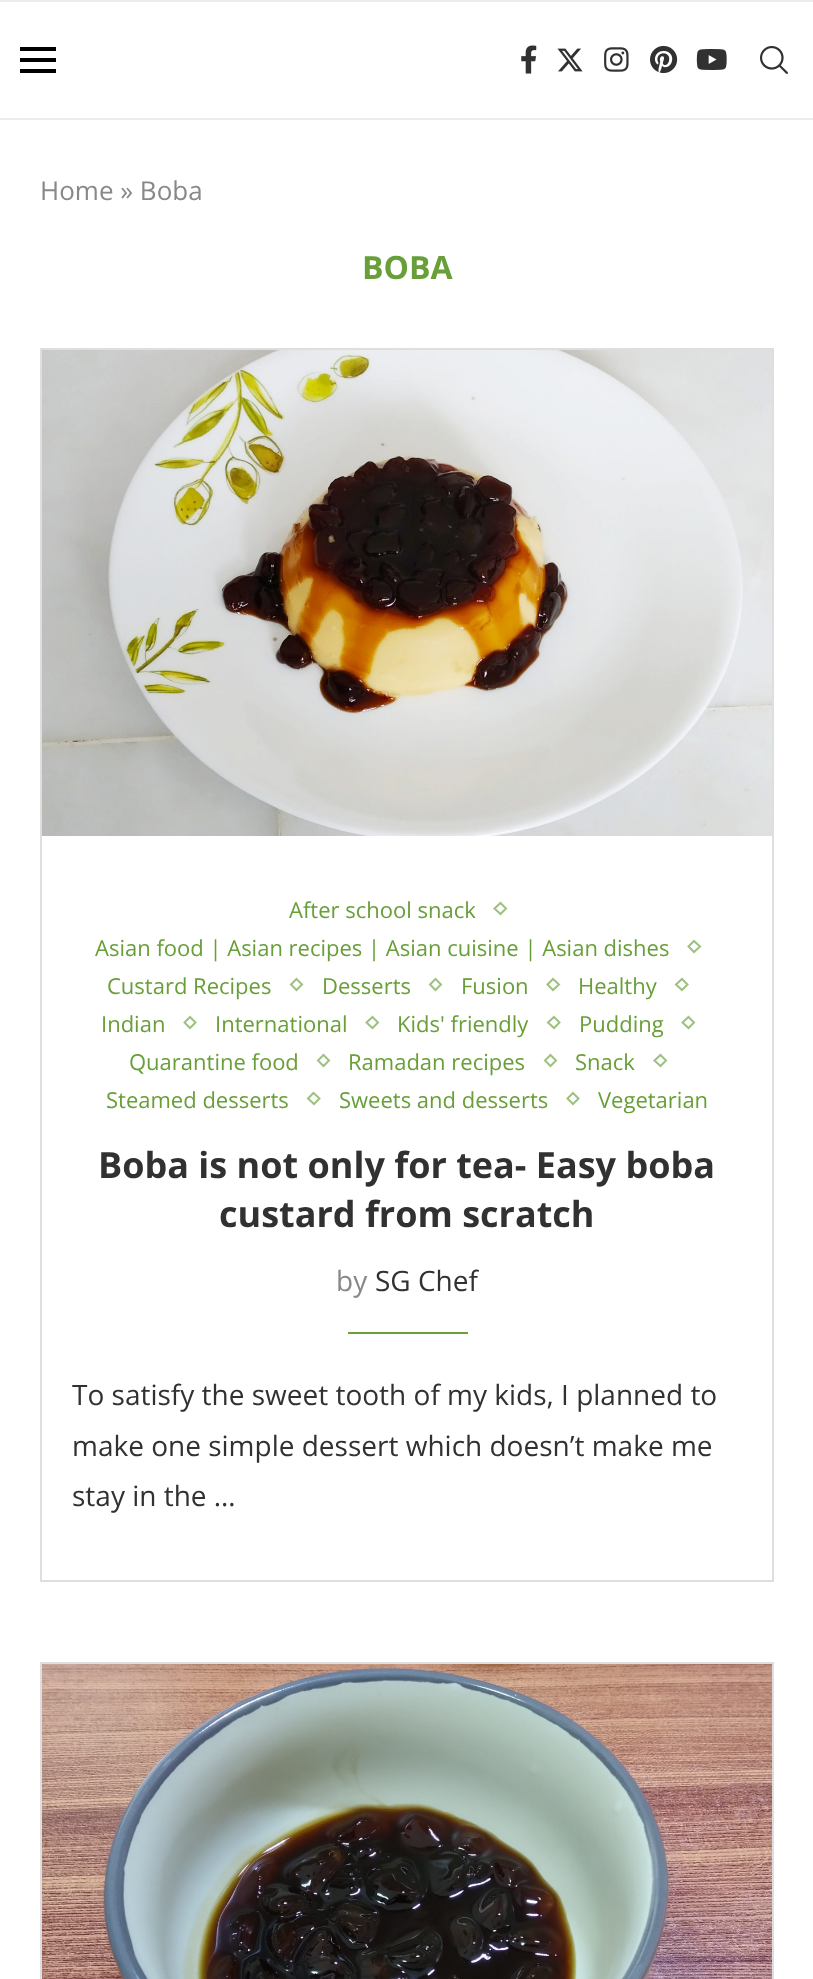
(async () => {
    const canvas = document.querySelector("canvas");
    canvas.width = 813;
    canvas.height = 1979;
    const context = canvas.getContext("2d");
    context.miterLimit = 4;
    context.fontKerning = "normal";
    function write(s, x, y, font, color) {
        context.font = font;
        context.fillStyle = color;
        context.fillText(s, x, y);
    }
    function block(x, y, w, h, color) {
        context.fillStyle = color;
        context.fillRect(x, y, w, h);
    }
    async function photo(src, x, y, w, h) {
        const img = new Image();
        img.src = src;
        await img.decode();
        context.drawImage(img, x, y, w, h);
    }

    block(0, 0, 813, 1979, "rgb(255, 255, 255)");
    block(0, 0, 813, 2, "rgb(236, 236, 236)");
    block(0, 118, 813, 2, "rgb(236, 236, 236)");
    block(20, 47, 36, 4, "rgb(0, 0, 0)");
    block(20, 58, 36, 4, "rgb(0, 0, 0)");
    block(20, 69, 36, 4, "rgb(0, 0, 0)");
    await photo("media/1.png", 521, 45, 16, 29);
    await photo("media/2.png", 557, 48, 26, 24);
    await photo("media/3.png", 604, 47, 25, 25);
    await photo("media/4.png", 650, 45, 28, 29);
    await photo("media/5.png", 696, 49, 31, 21);
    await photo("media/6.png", 760, 46, 28, 28);
    write("Home » Boba", 40, 200, "26px Open Sans", "rgb(136, 136, 136)");
    write("BOBA", 362, 279, "bold 32px Open Sans", "rgb(104, 159, 56)");
    context.strokeStyle = "rgb(222, 222, 222)";
    context.lineWidth = 2;
    context.strokeRect(41, 349, 732, 1232);
    await photo("media/7.png", 42, 350, 730, 486);
    write("After school snack", 289, 918, "22px Open Sans", "rgb(104, 159, 56)");
    context.beginPath();
    context.moveTo(500.5, 903);
    context.lineTo(506, 908.5);
    context.lineTo(500.5, 914);
    context.lineTo(494.5, 908.5);
    context.closePath();
    context.strokeStyle = "rgb(157, 193, 126)";
    context.stroke();
    write("Asian food | Asian recipes | Asian cuisine | Asian dishes", 95, 956, "22px Open Sans", "rgb(104, 159, 56)");
    context.beginPath();
    context.moveTo(694, 941);
    context.lineTo(700, 946.5);
    context.lineTo(694, 952);
    context.lineTo(688.5, 946.5);
    context.closePath();
    context.stroke();
    write("Custard Recipes", 107, 994, "22px Open Sans", "rgb(104, 159, 56)");
    context.beginPath();
    context.moveTo(296.5, 979);
    context.lineTo(302, 984.5);
    context.lineTo(296.5, 990);
    context.lineTo(291, 984.5);
    context.closePath();
    context.stroke();
    write("Desserts", 322, 994, "22px Open Sans", "rgb(104, 159, 56)");
    context.beginPath();
    context.moveTo(435.5, 979);
    context.lineTo(441, 984.5);
    context.lineTo(435.5, 990);
    context.lineTo(430, 984.5);
    context.closePath();
    context.stroke();
    write("Fusion", 461, 994, "22px Open Sans", "rgb(104, 159, 56)");
    context.beginPath();
    context.moveTo(553, 979);
    context.lineTo(559, 984.5);
    context.lineTo(553, 990);
    context.lineTo(547.5, 984.5);
    context.closePath();
    context.stroke();
    write("Healthy", 578, 994, "22px Open Sans", "rgb(104, 159, 56)");
    context.beginPath();
    context.moveTo(682, 979);
    context.lineTo(687.5, 984.5);
    context.lineTo(682, 990);
    context.lineTo(676, 984.5);
    context.closePath();
    context.stroke();
    write("Indian", 101, 1032, "22px Open Sans", "rgb(104, 159, 56)");
    context.beginPath();
    context.moveTo(190, 1017);
    context.lineTo(195.5, 1022.5);
    context.lineTo(190, 1028);
    context.lineTo(184.5, 1022.5);
    context.closePath();
    context.stroke();
    write("International", 215, 1032, "22px Open Sans", "rgb(104, 159, 56)");
    context.beginPath();
    context.moveTo(372.5, 1017);
    context.lineTo(378, 1022.5);
    context.lineTo(372.5, 1028);
    context.lineTo(366.5, 1022.5);
    context.closePath();
    context.stroke();
    write("Kids' friendly", 397, 1032, "22px Open Sans", "rgb(104, 159, 56)");
    context.beginPath();
    context.moveTo(554, 1017);
    context.lineTo(559.5, 1022.5);
    context.lineTo(554, 1028);
    context.lineTo(548, 1022.5);
    context.closePath();
    context.stroke();
    write("Pudding", 579, 1032, "22px Open Sans", "rgb(104, 159, 56)");
    context.beginPath();
    context.moveTo(688.5, 1017);
    context.lineTo(694, 1022.5);
    context.lineTo(688.5, 1028);
    context.lineTo(682.5, 1022.5);
    context.closePath();
    context.stroke();
    write("Quarantine food", 129, 1070, "22px Open Sans", "rgb(104, 159, 56)");
    context.beginPath();
    context.moveTo(323.5, 1055);
    context.lineTo(329, 1060.5);
    context.lineTo(323.5, 1066);
    context.lineTo(318, 1060.5);
    context.closePath();
    context.stroke();
    write("Ramadan recipes", 348, 1070, "22px Open Sans", "rgb(104, 159, 56)");
    context.beginPath();
    context.moveTo(550.5, 1055);
    context.lineTo(556, 1060.5);
    context.lineTo(550.5, 1066);
    context.lineTo(545, 1060.5);
    context.closePath();
    context.stroke();
    write("Snack", 575, 1070, "22px Open Sans", "rgb(104, 159, 56)");
    context.beginPath();
    context.moveTo(660.5, 1055);
    context.lineTo(666, 1060.5);
    context.lineTo(660.5, 1066);
    context.lineTo(654.5, 1060.5);
    context.closePath();
    context.stroke();
    write("Steamed desserts", 106, 1108, "22px Open Sans", "rgb(104, 159, 56)");
    context.beginPath();
    context.moveTo(313.5, 1093);
    context.lineTo(319.5, 1098.5);
    context.lineTo(314, 1104);
    context.lineTo(308, 1098.5);
    context.closePath();
    context.stroke();
    write("Sweets and desserts", 339, 1108, "22px Open Sans", "rgb(104, 159, 56)");
    context.beginPath();
    context.moveTo(573, 1093);
    context.lineTo(578.5, 1098.5);
    context.lineTo(573, 1104);
    context.lineTo(567.5, 1098.5);
    context.closePath();
    context.stroke();
    write("Vegetarian", 598, 1108, "22px Open Sans", "rgb(104, 159, 56)");
    write("Boba is not only for tea- Easy boba", 98, 1178, "bold 36px Open Sans", "rgb(49, 49, 49)");
    write("custard from scratch", 219, 1227, "bold 36px Open Sans", "rgb(49, 49, 49)");
    write("by", 336, 1291, "28px Open Sans", "rgb(136, 136, 136)");
    write("SG Chef", 375, 1291, "28px Open Sans", "rgb(49, 49, 49)");
    block(348, 1332, 120, 2, "rgb(104, 159, 56)");
    write("To satisfy the sweet tooth of my kids, I planned to", 72, 1405, "28px Open Sans", "rgb(49, 49, 49)");
    write("make one simple dessert which doesn’t make me", 72, 1456, "28px Open Sans", "rgb(49, 49, 49)");
    write("stay in the …", 72, 1506, "28px Open Sans", "rgb(49, 49, 49)");
    context.strokeStyle = "rgb(222, 222, 222)";
    context.strokeRect(41, 1663, 732, 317);
    await photo("media/8.png", 42, 1664, 730, 315);
})();
